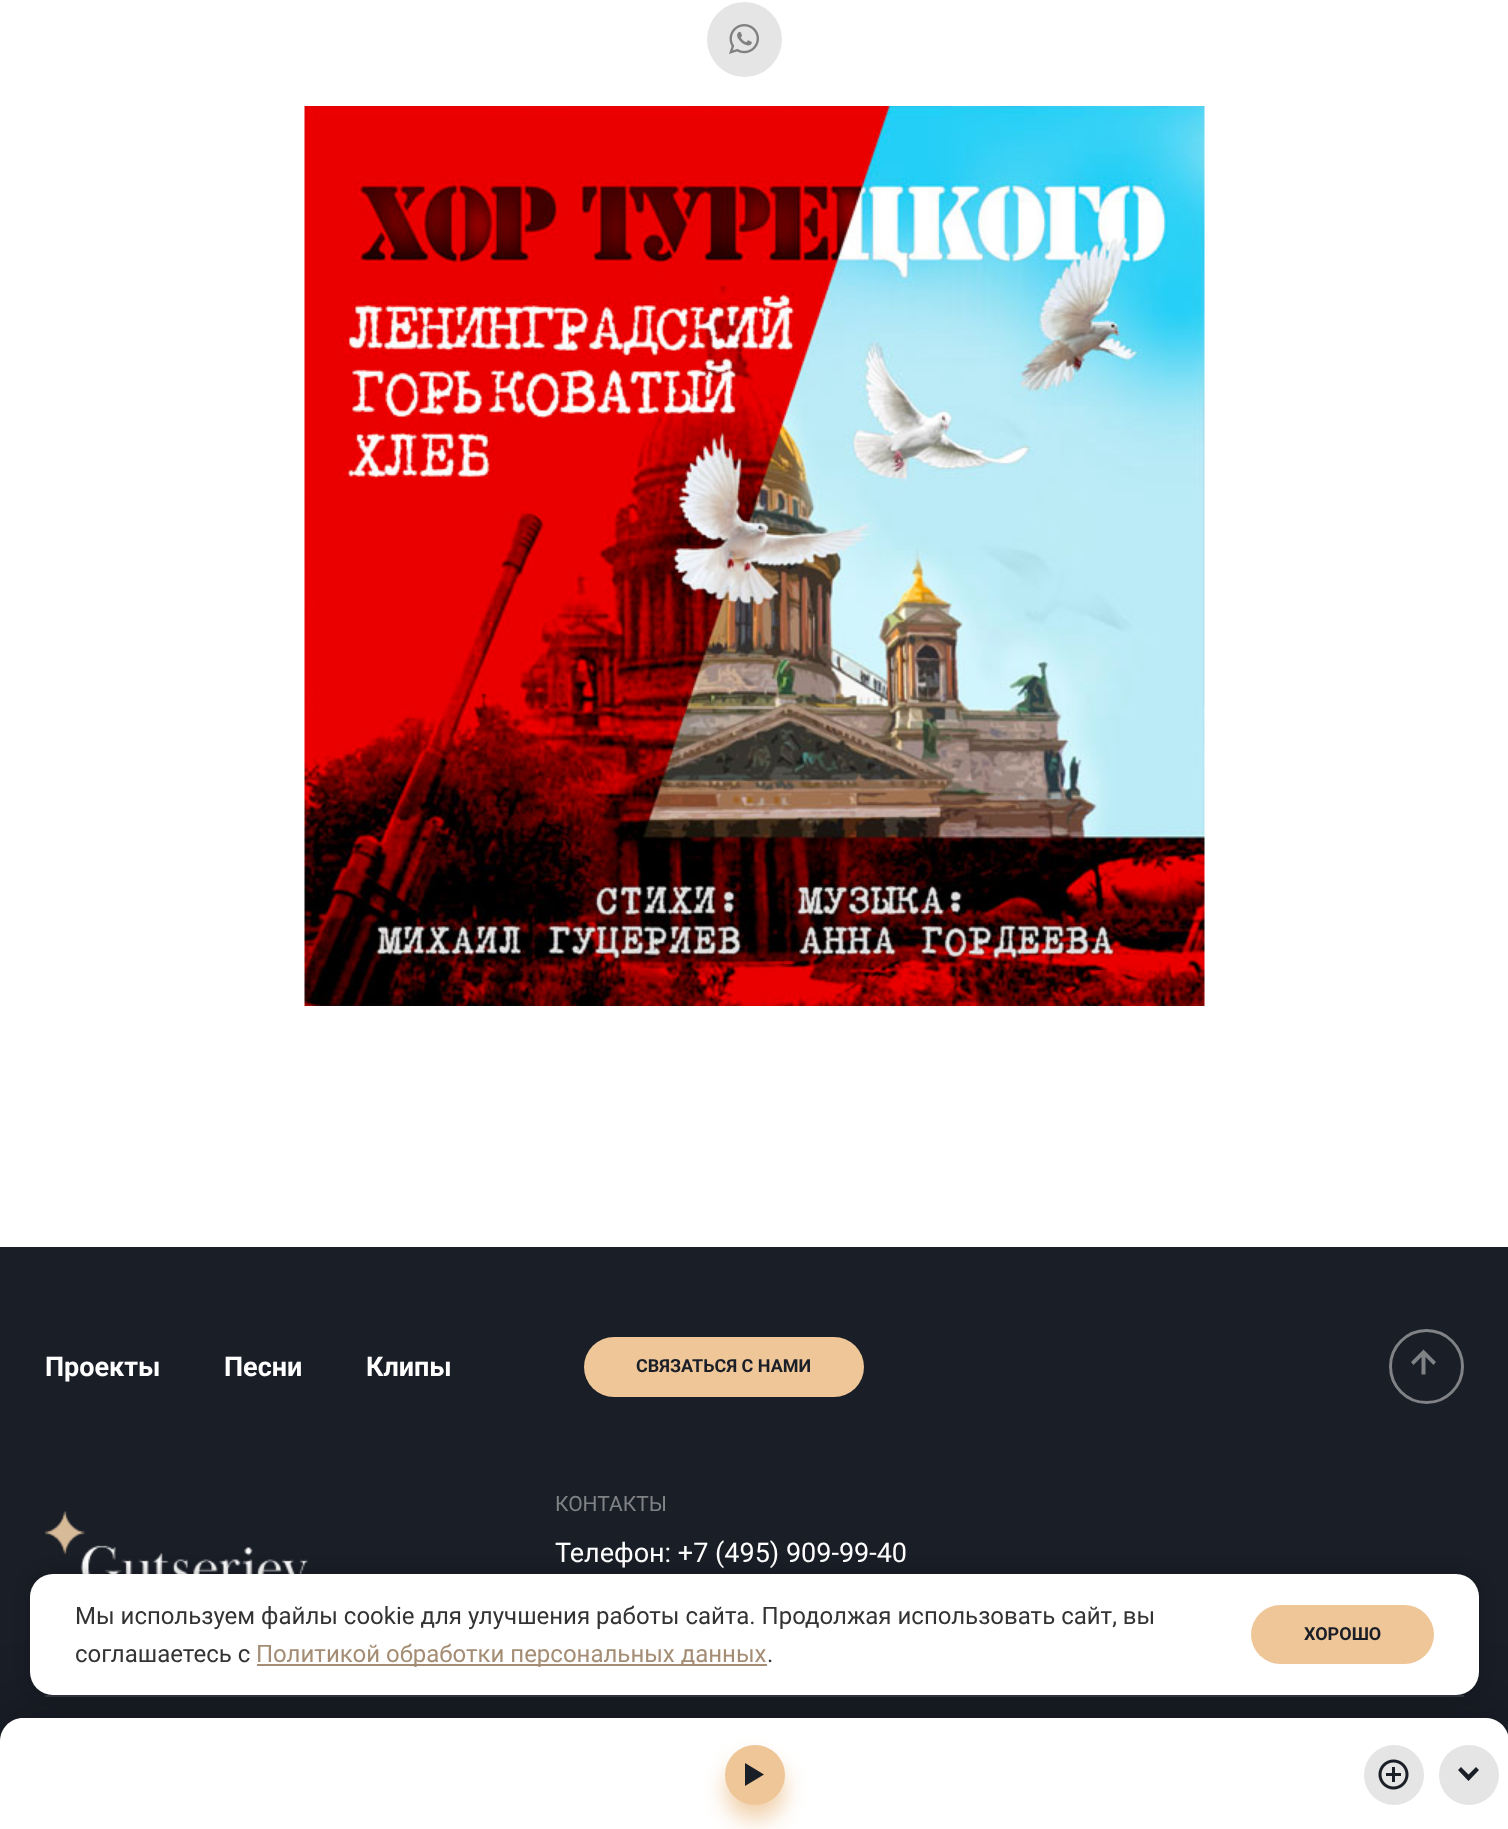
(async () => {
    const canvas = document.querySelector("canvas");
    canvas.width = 1508;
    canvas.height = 1829;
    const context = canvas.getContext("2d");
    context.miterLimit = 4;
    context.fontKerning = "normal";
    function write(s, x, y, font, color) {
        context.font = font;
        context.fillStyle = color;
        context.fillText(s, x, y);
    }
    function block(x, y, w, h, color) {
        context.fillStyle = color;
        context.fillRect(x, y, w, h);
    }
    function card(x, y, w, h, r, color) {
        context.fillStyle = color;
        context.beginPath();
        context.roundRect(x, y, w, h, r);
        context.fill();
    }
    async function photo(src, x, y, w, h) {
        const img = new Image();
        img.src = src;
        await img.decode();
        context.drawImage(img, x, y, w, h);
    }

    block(0, 0, 1508, 1829, "rgb(255, 255, 255)");
    context.fillStyle = "rgb(229, 229, 229)";
    context.beginPath();
    context.arc(744.5, 39.5, 37.5, 0, Math.PI * 2);
    context.fill();
    await photo("media/1.png", 729, 24, 30, 30);
    await photo("media/2.png", 304, 106, 901, 900);
    block(0, 1247, 1508, 494, "rgb(26, 30, 39)");
    write("Проекты", 45, 1376, "bold 27px Roboto", "rgb(255, 255, 255)");
    write("Песни", 224, 1376, "bold 27px Roboto", "rgb(255, 255, 255)");
    write("Клипы", 366, 1376, "bold 27px Roboto", "rgb(255, 255, 255)");
    card(584, 1337, 280, 60, 30, "rgb(238, 198, 151)");
    write("СВЯЗАТЬСЯ С НАМИ", 636, 1372, "bold 18px Roboto", "rgb(26, 30, 39)");
    context.beginPath();
    context.arc(1426.5, 1366.5, 36, 0, Math.PI * 2);
    context.strokeStyle = "rgb(128, 130, 134)";
    context.lineWidth = 3;
    context.stroke();
    context.fillStyle = "rgb(128, 130, 134)";
    context.beginPath();
    context.moveTo(1421.5, 1357);
    context.lineTo(1421.5, 1374.5);
    context.lineTo(1425.5, 1374.5);
    context.lineTo(1425.5, 1357);
    context.lineTo(1433.5, 1365);
    context.lineTo(1436, 1362);
    context.lineTo(1423.5, 1349.5);
    context.lineTo(1411, 1362);
    context.lineTo(1413.5, 1365);
    context.closePath();
    context.fill();
    await photo("media/3.png", 45, 1511, 263, 63);
    write("КОНТАКТЫ", 555, 1511, "21px Roboto", "rgb(128, 130, 134)");
    write("Телефон: +7 (495) 909-99-40", 555, 1562, "27px Roboto", "rgb(255, 255, 255)");
    block(45, 1695, 1419, 2, "rgb(57, 60, 68)");
    context.fillStyle = "rgba(0, 0, 0, 0.2)";
    context.filter = "blur(7.5px)";
    context.beginPath();
    context.roundRect(30, 1571, 1449, 121, 23);
    context.fill();
    context.filter = "none";
    context.fillStyle = "rgba(0, 0, 0, 0.25)";
    context.filter = "blur(30px)";
    context.beginPath();
    context.roundRect(0, 1703, 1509, 112, 23);
    context.fill();
    context.filter = "none";
    card(30, 1574, 1449, 121, 23, "rgb(255, 255, 255)");
    write("Мы используем файлы cookie для улучшения работы сайта. Продолжая использовать сайт, вы", 75, 1624, "24px Roboto", "rgb(51, 51, 51)");
    write("соглашаетесь с", 75, 1662, "24px Roboto", "rgb(51, 51, 51)");
    block(257, 1664, 510, 2, "rgb(164, 141, 116)");
    write("Политикой обработки персональных данных", 256, 1662, "24px Roboto", "rgb(164, 141, 116)");
    write(".", 767, 1662, "24px Roboto", "rgb(51, 51, 51)");
    card(1251, 1605, 183, 59, 29.5, "rgb(238, 198, 151)");
    write("ХОРОШО", 1304, 1640, "bold 18px Roboto", "rgb(26, 30, 39)");
    context.fillStyle = "rgb(255, 255, 255)";
    context.beginPath();
    context.moveTo(23, 1718);
    context.lineTo(1486, 1718);
    context.bezierCurveTo(1498.5, 1718, 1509, 1728.5, 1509, 1741);
    context.lineTo(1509, 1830);
    context.lineTo(0, 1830);
    context.lineTo(0, 1741);
    context.bezierCurveTo(0, 1728.5, 10.5, 1718, 23, 1718);
    context.closePath();
    context.fill();
    context.fillStyle = "rgba(238, 198, 151, 0.8)";
    context.filter = "blur(11px)";
    context.beginPath();
    context.roundRect(725, 1760, 60, 60, 30);
    context.fill();
    context.filter = "none";
    context.fillStyle = "rgb(238, 198, 151)";
    context.beginPath();
    context.arc(755, 1775, 30, 0, Math.PI * 2);
    context.fill();
    context.fillStyle = "rgb(26, 30, 39)";
    context.beginPath();
    context.moveTo(745, 1763);
    context.lineTo(745, 1786);
    context.lineTo(764, 1774.5);
    context.closePath();
    context.fill();
    context.fillStyle = "rgb(229, 229, 229)";
    context.beginPath();
    context.arc(1394, 1775, 30, 0, Math.PI * 2);
    context.fill();
    await photo("media/4.png", 1378, 1759, 31, 31);
    context.beginPath();
    context.arc(1469, 1775, 30, 0, Math.PI * 2);
    context.fill();
    context.fillStyle = "rgb(26, 30, 39)";
    context.beginPath();
    context.moveTo(1476, 1767);
    context.lineTo(1468.5, 1774.5);
    context.lineTo(1461, 1767);
    context.lineTo(1458, 1770);
    context.lineTo(1468.5, 1781);
    context.lineTo(1479, 1770);
    context.closePath();
    context.fill();
})();
